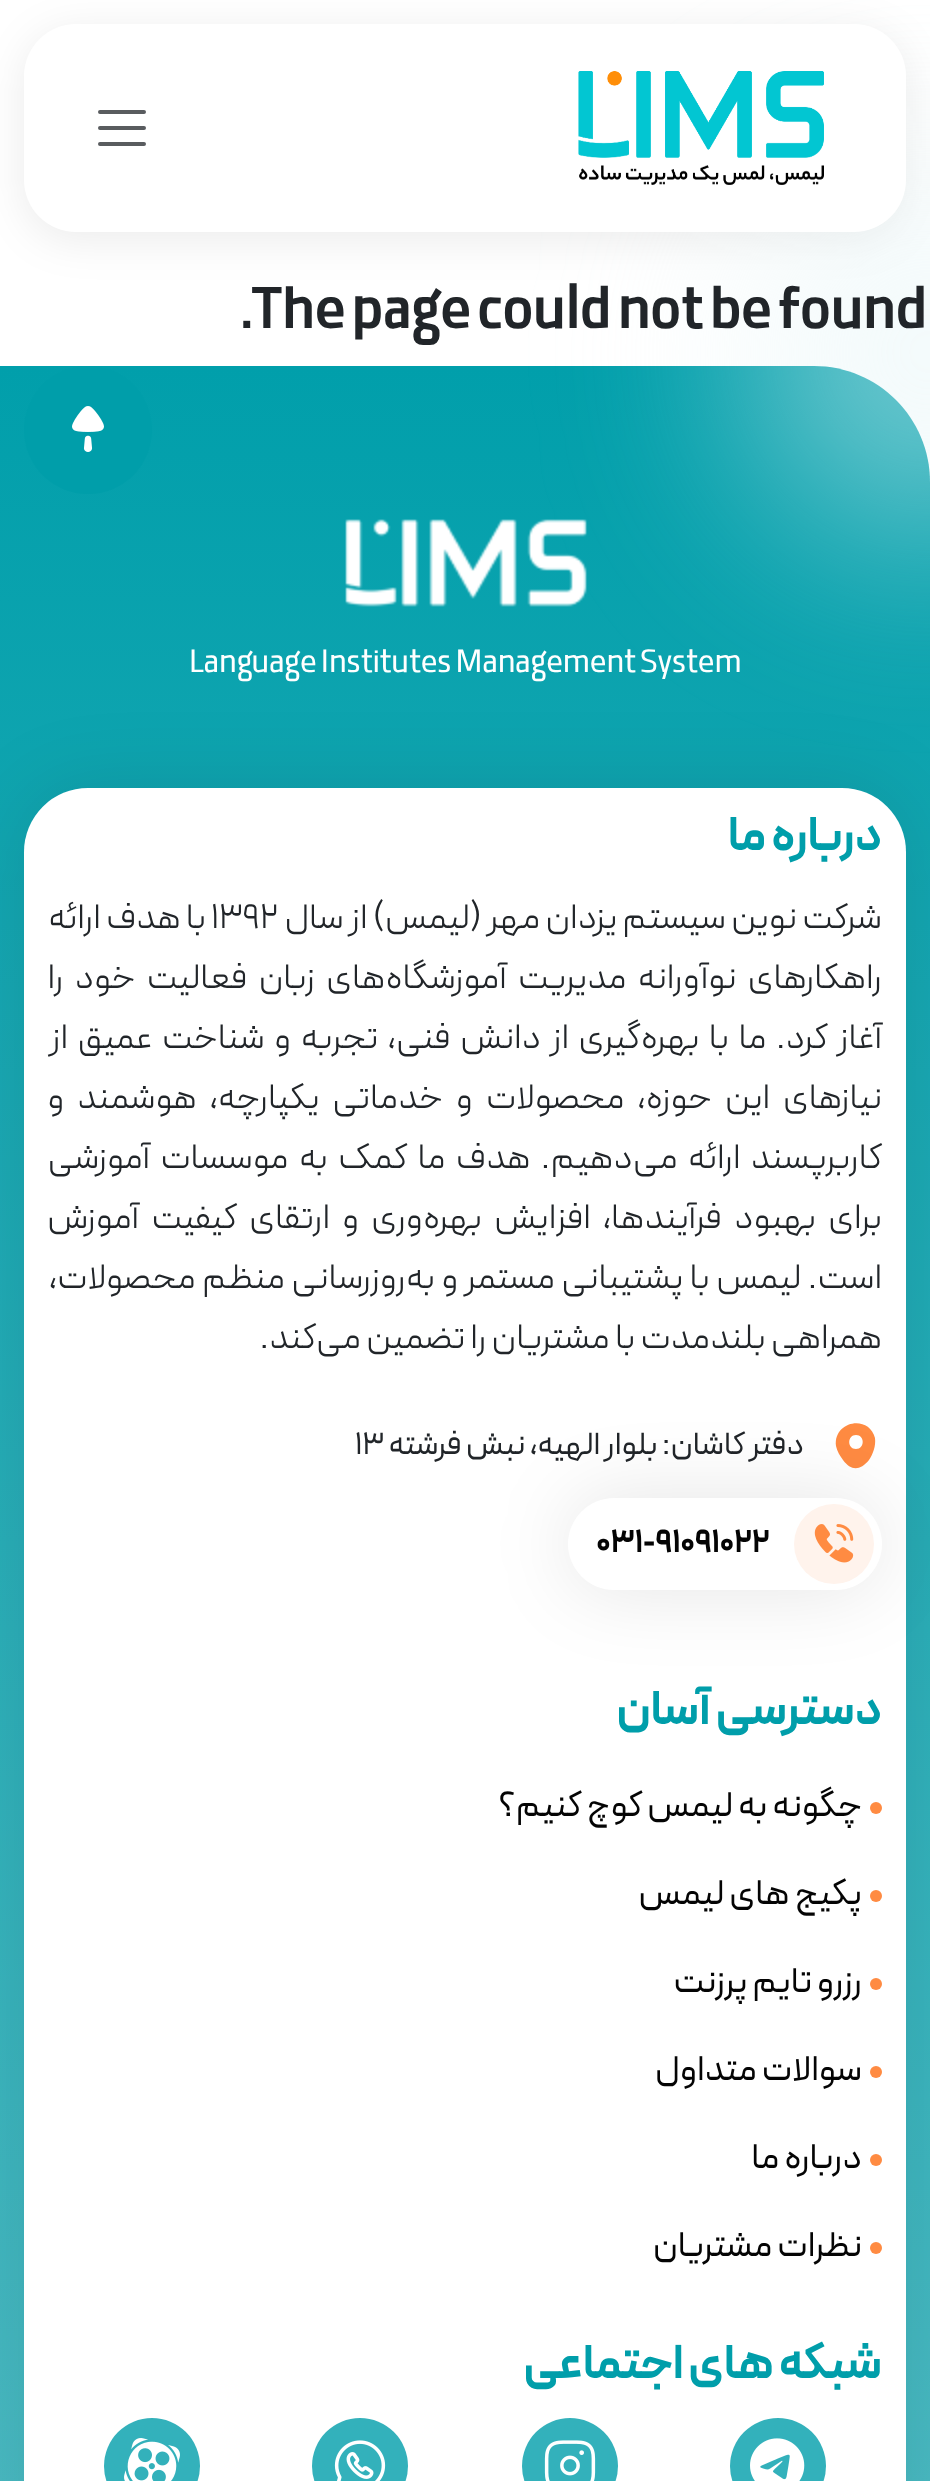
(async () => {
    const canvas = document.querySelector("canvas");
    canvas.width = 930;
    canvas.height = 2481;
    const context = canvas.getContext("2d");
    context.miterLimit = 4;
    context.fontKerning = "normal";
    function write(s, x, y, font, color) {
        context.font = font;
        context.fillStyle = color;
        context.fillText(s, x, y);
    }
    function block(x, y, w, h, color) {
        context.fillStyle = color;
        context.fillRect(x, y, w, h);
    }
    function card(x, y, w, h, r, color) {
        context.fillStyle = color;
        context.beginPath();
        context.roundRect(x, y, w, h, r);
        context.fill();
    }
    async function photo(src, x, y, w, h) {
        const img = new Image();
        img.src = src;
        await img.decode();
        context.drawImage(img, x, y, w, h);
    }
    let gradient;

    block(0, 0, 930, 2481, "rgb(255, 255, 255)");
    context.fillStyle = "rgba(0, 0, 0, 0.08)";
    context.filter = "blur(22px)";
    context.beginPath();
    context.roundRect(24, 32, 882, 208, 52);
    context.fill();
    context.filter = "none";
    gradient = context.createLinearGradient(465, 366, 465, 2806);
    gradient.addColorStop(0, "rgb(1, 159, 171)");
    gradient.addColorStop(1, "rgb(84, 190, 198)");
    context.fillStyle = gradient;
    context.beginPath();
    context.moveTo(0, 366);
    context.lineTo(814, 366);
    context.bezierCurveTo(878, 366, 930, 418, 930, 482);
    context.lineTo(930, 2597);
    context.lineTo(0, 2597);
    context.closePath();
    context.fill();
    context.fillStyle = "rgba(230, 245, 247, 0.5)";
    context.filter = "blur(100px)";
    context.beginPath();
    context.roundRect(744, 166, 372, 372, 186);
    context.fill();
    context.filter = "none";
    card(24, 24, 882, 208, 52, "rgb(255, 255, 255)");
    await photo("media/1.png", 578, 71, 246, 114);
    context.beginPath();
    context.moveTo(100, 112);
    context.lineTo(144, 112);
    context.moveTo(100, 128);
    context.lineTo(144, 128);
    context.moveTo(100, 144);
    context.lineTo(144, 144);
    context.strokeStyle = "rgb(89, 92, 95)";
    context.lineWidth = 4;
    context.lineCap = "round";
    context.stroke();
    write(".The page could not be found", 239, 328, "600 58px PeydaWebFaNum", "rgb(33, 37, 41)");
    context.fillStyle = "rgb(0, 158, 170)";
    context.beginPath();
    context.arc(88, 430, 64, 0, Math.PI * 2);
    context.fill();
    await photo("media/2.png", 72, 406, 32, 46);
    await photo("media/3.png", 345, 519, 242, 88);
    context.fillStyle = "rgba(0, 0, 0, 0.1)";
    context.filter = "blur(40px)";
    context.beginPath();
    context.roundRect(24, 788, 882, 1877, 64);
    context.fill();
    context.filter = "none";
    write("Language Institutes Management System", 189, 672, "32px PeydaWebFaNum", "rgb(255, 255, 255)");
    card(24, 788, 882, 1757, 64, "rgb(255, 255, 255)");
    context.direction = "rtl";
    write("درباره ما", 882, 850, "bold 48px PeydaWebFaNum", "rgb(0, 158, 170)");
    write("شرکت نوین سیستم یزدان مهر (لیمس) از سال", 882, 928, "300 36px PeydaWebFaNum", "rgb(33, 37, 41)");
    context.direction = "ltr";
    write("1392", 211, 928, "300 36px PeydaWebFaNum", "rgb(33, 37, 41)");
    context.direction = "rtl";
    write("با هدف ارائه", 206, 928, "300 36px PeydaWebFaNum", "rgb(33, 37, 41)");
    context.wordSpacing = "6px";
    write("راهکارهای نوآورانه مدیریت آموزشگاه‌های زبان فعالیت خود را", 882, 988, "300 36px PeydaWebFaNum", "rgb(33, 37, 41)");
    context.wordSpacing = "4.25px";
    write("آغاز کرد. ما با بهره‌گیری از دانش فنی، تجربه و شناخت عمیق از", 882, 1048, "300 36px PeydaWebFaNum", "rgb(33, 37, 41)");
    context.wordSpacing = "7.75px";
    write("نیازهای این حوزه، محصولات و خدماتی یکپارچه، هوشمند و", 882, 1108, "300 36px PeydaWebFaNum", "rgb(33, 37, 41)");
    context.wordSpacing = "5px";
    write("کاربرپسند ارائه می‌دهیم. هدف ما کمک به موسسات آموزشی", 882, 1168, "300 36px PeydaWebFaNum", "rgb(33, 37, 41)");
    context.wordSpacing = "7px";
    write("برای بهبود فرآیندها، افزایش بهره‌وری و ارتقای کیفیت آموزش", 882, 1228, "300 36px PeydaWebFaNum", "rgb(33, 37, 41)");
    context.wordSpacing = "1.25px";
    write("است. لیمس با پشتیبانی مستمر و به‌روزرسانی منظم محصولات،", 882, 1288, "300 36px PeydaWebFaNum", "rgb(33, 37, 41)");
    context.wordSpacing = "0px";
    write("همراهی بلندمدت با مشتریان را تضمین می‌کند.", 882, 1348, "300 36px PeydaWebFaNum", "rgb(33, 37, 41)");
    context.fillStyle = "rgb(255, 139, 66)";
    context.beginPath();
    context.moveTo(875, 1438);
    context.bezierCurveTo(869, 1414, 833, 1421, 836, 1446);
    context.bezierCurveTo(837, 1451, 840, 1456, 843, 1460);
    context.bezierCurveTo(851, 1471, 860, 1471, 869, 1460);
    context.bezierCurveTo(873, 1454, 876, 1446, 875, 1438);
    context.closePath();
    context.moveTo(856, 1449);
    context.bezierCurveTo(847, 1449, 847, 1435, 856, 1435);
    context.bezierCurveTo(865, 1435, 865, 1449, 856, 1449);
    context.closePath();
    context.fill();
    write("دفتر کاشان: بلوار الهیه، نبش فرشته", 804, 1454, "32px PeydaWebFaNum", "rgb(33, 37, 41)");
    context.direction = "ltr";
    write("13", 355, 1454, "32px PeydaWebFaNum", "rgb(33, 37, 41)");
    context.fillStyle = "rgba(0, 0, 0, 0.1)";
    context.filter = "blur(40px)";
    context.beginPath();
    context.roundRect(568, 1498, 314, 92, 46);
    context.fill();
    context.filter = "none";
    card(568, 1498, 314, 92, 46, "rgb(255, 255, 255)");
    context.fillStyle = "rgb(255, 243, 236)";
    context.beginPath();
    context.arc(834, 1544, 40, 0, Math.PI * 2);
    context.fill();
    await photo("media/4.png", 814, 1524, 40, 39);
    write("031-91091022", 596, 1552, "bold 32px PeydaWebFaNum", "rgb(4, 4, 4)");
    context.direction = "rtl";
    write("دسترسی آسان", 882, 1724, "bold 48px PeydaWebFaNum", "rgb(0, 158, 170)");
    context.fillStyle = "rgb(255, 139, 66)";
    context.beginPath();
    context.arc(876, 1808, 6, 0, Math.PI * 2);
    context.fill();
    write("چگونه به لیمس کوچ کنیم؟", 862, 1816, "36px PeydaWebFaNum", "rgb(4, 4, 4)");
    context.fillStyle = "rgb(255, 139, 66)";
    context.beginPath();
    context.arc(876, 1896, 6, 0, Math.PI * 2);
    context.fill();
    write("پکیج های لیمس", 862, 1904, "36px PeydaWebFaNum", "rgb(4, 4, 4)");
    context.fillStyle = "rgb(255, 139, 66)";
    context.beginPath();
    context.arc(876, 1984, 6, 0, Math.PI * 2);
    context.fill();
    write("رزرو تایم پرزنت", 862, 1992, "36px PeydaWebFaNum", "rgb(4, 4, 4)");
    context.fillStyle = "rgb(255, 139, 66)";
    context.beginPath();
    context.arc(876, 2072, 6, 0, Math.PI * 2);
    context.fill();
    write("سوالات متداول", 862, 2080, "36px PeydaWebFaNum", "rgb(4, 4, 4)");
    context.fillStyle = "rgb(255, 139, 66)";
    context.beginPath();
    context.arc(876, 2160, 6, 0, Math.PI * 2);
    context.fill();
    write("درباره ما", 862, 2168, "36px PeydaWebFaNum", "rgb(4, 4, 4)");
    context.fillStyle = "rgb(255, 139, 66)";
    context.beginPath();
    context.arc(876, 2248, 6, 0, Math.PI * 2);
    context.fill();
    write("نظرات مشتریان", 862, 2256, "36px PeydaWebFaNum", "rgb(4, 4, 4)");
    write("شبکه های اجتماعی", 882, 2378, "bold 48px PeydaWebFaNum", "rgb(0, 158, 170)");
    context.fillStyle = "rgb(51, 177, 187)";
    context.beginPath();
    context.arc(778, 2466, 48, 0, Math.PI * 2);
    context.fill();
    await photo("media/5.png", 750, 2438, 55, 43);
    context.beginPath();
    context.arc(570, 2466, 48, 0, Math.PI * 2);
    context.fill();
    await photo("media/6.png", 544, 2440, 52, 41);
    context.beginPath();
    context.arc(360, 2466, 48, 0, Math.PI * 2);
    context.fill();
    await photo("media/7.png", 334, 2440, 52, 41);
    context.beginPath();
    context.arc(152, 2466, 48, 0, Math.PI * 2);
    context.fill();
    await photo("media/8.png", 124, 2438, 56, 43);
})();
